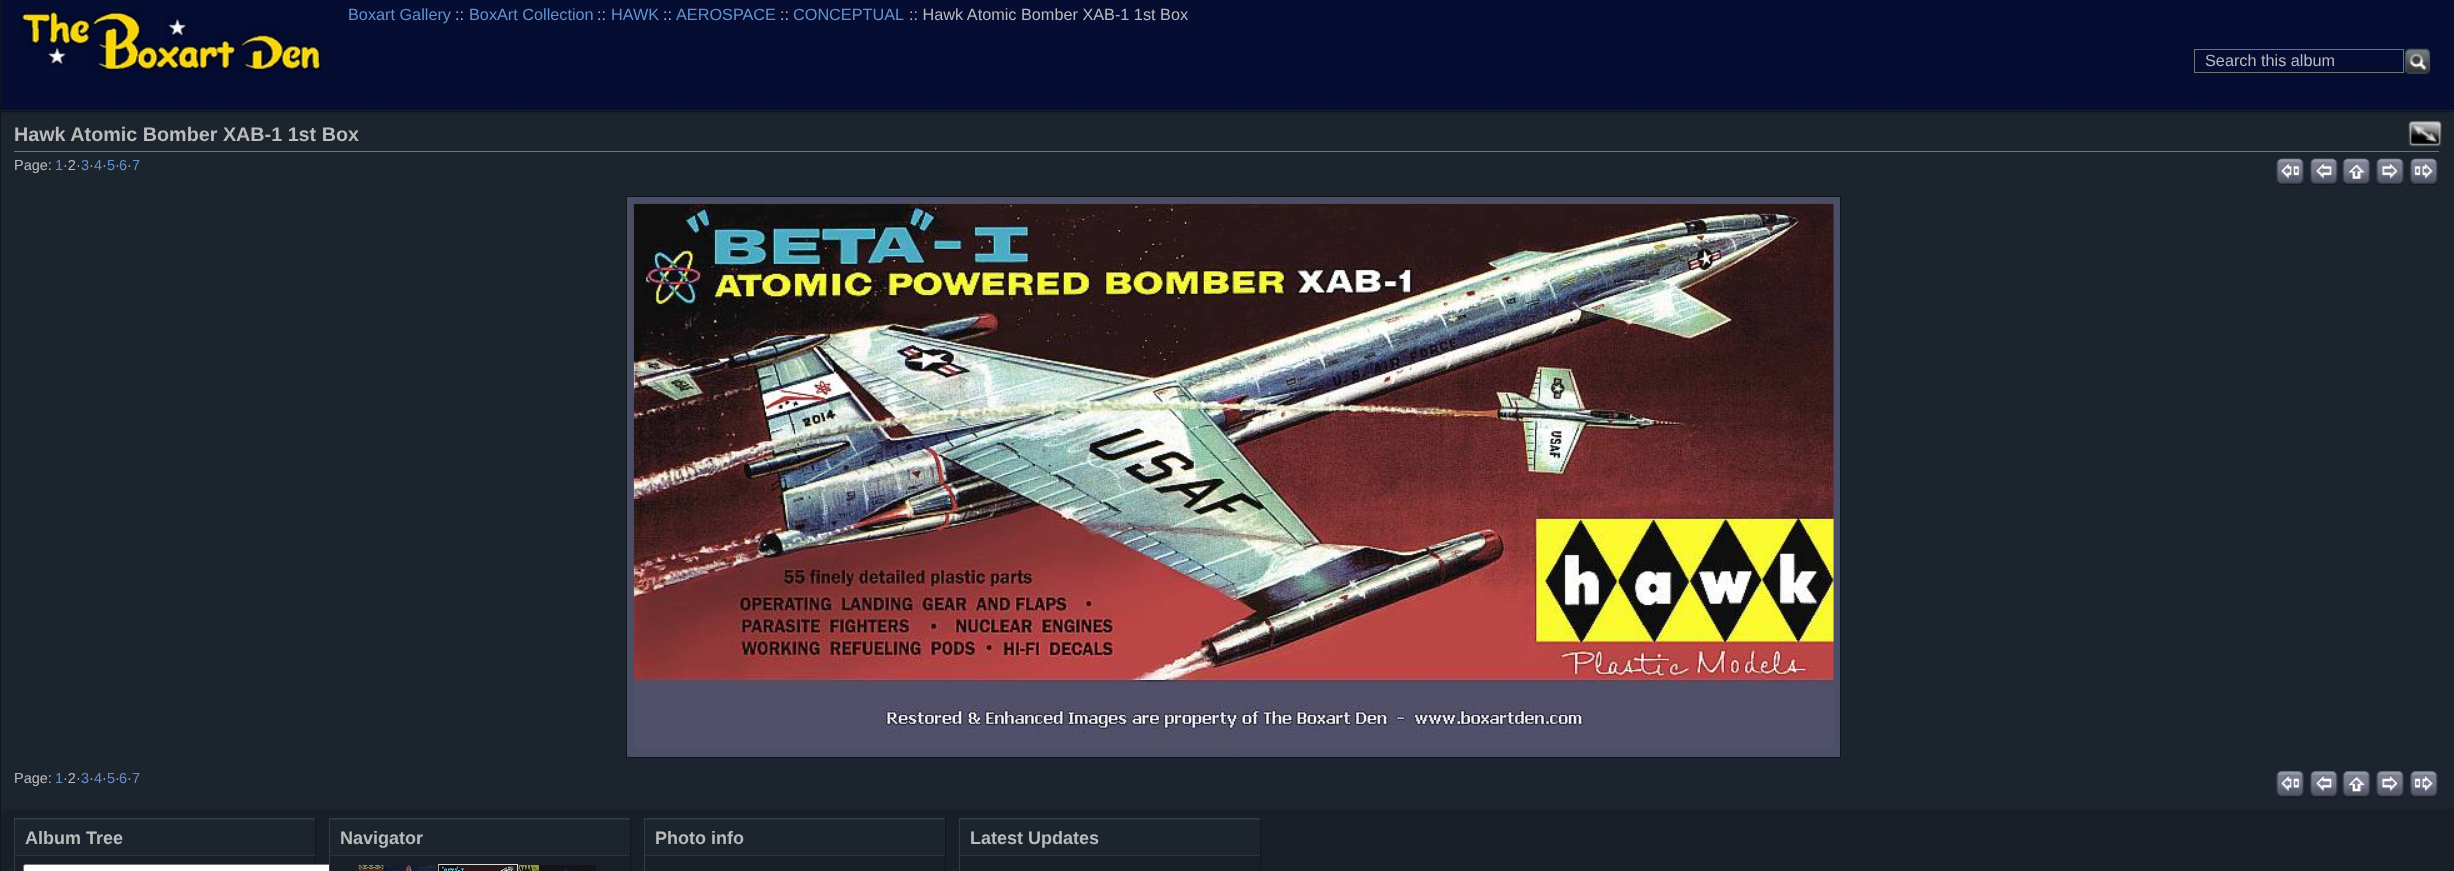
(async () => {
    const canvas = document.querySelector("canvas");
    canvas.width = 2454;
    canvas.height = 871;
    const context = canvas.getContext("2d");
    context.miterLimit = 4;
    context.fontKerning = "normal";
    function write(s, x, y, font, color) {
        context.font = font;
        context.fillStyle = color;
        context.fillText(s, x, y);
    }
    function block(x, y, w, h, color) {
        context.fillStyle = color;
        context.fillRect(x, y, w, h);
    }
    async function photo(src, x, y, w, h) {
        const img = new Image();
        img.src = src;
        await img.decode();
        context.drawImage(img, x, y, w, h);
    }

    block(0, 0, 2454, 871, "rgb(28, 36, 46)");
    await photo("media/1.png", 1, 0, 2453, 113);
    await photo("media/2.png", 21, 10, 301, 63);
    write("Boxart Gallery", 348, 20, "16.25px Liberation Sans", "rgb(99, 146, 207)");
    write("::", 455, 20, "16.25px Liberation Sans", "rgb(187, 187, 187)");
    write("BoxArt Collection", 469, 20, "16.25px Liberation Sans", "rgb(99, 146, 207)");
    write("::", 597, 20, "16.25px Liberation Sans", "rgb(187, 187, 187)");
    write("HAWK", 611, 20, "16.25px Liberation Sans", "rgb(99, 146, 207)");
    write("::", 663, 20, "16.25px Liberation Sans", "rgb(187, 187, 187)");
    write("AEROSPACE", 676, 20, "16.25px Liberation Sans", "rgb(99, 146, 207)");
    write("::", 780, 20, "16.25px Liberation Sans", "rgb(187, 187, 187)");
    write("CONCEPTUAL", 793, 20, "16.25px Liberation Sans", "rgb(99, 146, 207)");
    write(":: Hawk Atomic Bomber XAB-1 1st Box", 909, 20, "16.25px Liberation Sans", "rgb(187, 187, 187)");
    context.strokeStyle = "rgb(115, 115, 115)";
    context.strokeRect(2194.5, 49.5, 209, 23);
    write("Search this album", 2205, 66, "16.25px Liberation Sans", "rgb(187, 187, 187)");
    await photo("media/3.png", 2405, 48, 25, 26);
    block(0, 0, 1, 871, "rgb(16, 21, 28)");
    block(14, 151, 2425, 1, "rgb(115, 115, 115)");
    write("Hawk Atomic Bomber XAB-1 1st Box", 14, 141, "bold 19.75px Liberation Sans", "rgb(187, 187, 187)");
    write("Page:", 14, 170, "14.5px Liberation Sans", "rgb(187, 187, 187)");
    write("1", 55, 170, "14.5px Liberation Sans", "rgb(99, 146, 207)");
    write("·2·", 63, 170, "14.5px Liberation Sans", "rgb(187, 187, 187)");
    write("3", 81, 170, "14.5px Liberation Sans", "rgb(99, 146, 207)");
    write("·", 89, 170, "14.5px Liberation Sans", "rgb(187, 187, 187)");
    write("4", 94, 170, "14.5px Liberation Sans", "rgb(99, 146, 207)");
    write("·", 102, 170, "14.5px Liberation Sans", "rgb(187, 187, 187)");
    write("5", 107, 170, "14.5px Liberation Sans", "rgb(99, 146, 207)");
    write("·", 115, 170, "14.5px Liberation Sans", "rgb(187, 187, 187)");
    write("6", 119, 170, "14.5px Liberation Sans", "rgb(99, 146, 207)");
    write("·", 127, 170, "14.5px Liberation Sans", "rgb(187, 187, 187)");
    write("7", 132, 170, "14.5px Liberation Sans", "rgb(99, 146, 207)");
    await photo("media/4.png", 2276, 158, 28, 27);
    await photo("media/5.png", 2310, 158, 28, 27);
    await photo("media/6.png", 2342, 158, 29, 27);
    await photo("media/7.png", 2376, 158, 28, 27);
    await photo("media/8.png", 2410, 158, 28, 27);
    context.fillStyle = "rgb(74, 78, 103)";
    context.beginPath();
    context.rect(626.5, 196.5, 1214, 561);
    context.fill();
    context.strokeStyle = "rgb(16, 21, 28)";
    context.stroke();
    await photo("media/9.png", 633, 203, 1201, 547);
    write("Page:", 14, 783, "14.5px Liberation Sans", "rgb(187, 187, 187)");
    write("1", 55, 783, "14.5px Liberation Sans", "rgb(99, 146, 207)");
    write("·2·", 63, 783, "14.5px Liberation Sans", "rgb(187, 187, 187)");
    write("3", 81, 783, "14.5px Liberation Sans", "rgb(99, 146, 207)");
    write("·", 89, 783, "14.5px Liberation Sans", "rgb(187, 187, 187)");
    write("4", 94, 783, "14.5px Liberation Sans", "rgb(99, 146, 207)");
    write("·", 102, 783, "14.5px Liberation Sans", "rgb(187, 187, 187)");
    write("5", 107, 783, "14.5px Liberation Sans", "rgb(99, 146, 207)");
    write("·", 115, 783, "14.5px Liberation Sans", "rgb(187, 187, 187)");
    write("6", 119, 783, "14.5px Liberation Sans", "rgb(99, 146, 207)");
    write("·", 127, 783, "14.5px Liberation Sans", "rgb(187, 187, 187)");
    write("7", 132, 783, "14.5px Liberation Sans", "rgb(99, 146, 207)");
    await photo("media/10.png", 2276, 771, 28, 27);
    await photo("media/11.png", 2310, 771, 28, 27);
    await photo("media/12.png", 2342, 771, 29, 27);
    await photo("media/13.png", 2376, 771, 28, 27);
    await photo("media/14.png", 2410, 771, 28, 27);
    await photo("media/15.png", 2408, 121, 34, 26);
    block(1, 809, 2453, 62, "rgb(26, 30, 39)");
    block(14, 818, 302, 1, "rgb(48, 62, 67)");
    block(315, 818, 1, 53, "rgb(16, 21, 28)");
    block(14, 818, 1, 53, "rgb(48, 62, 67)");
    block(15, 820, 300, 35, "rgb(28, 36, 46)");
    block(15, 819, 300, 1, "rgb(39, 52, 68)");
    block(15, 855, 300, 1, "rgb(39, 52, 68)");
    write("Album Tree", 25, 844, "bold 18px Liberation Sans", "rgb(187, 187, 187)");
    context.fillStyle = "rgb(255, 255, 255)";
    context.beginPath();
    context.roundRect(23.5, 864.5, 430, 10, 2);
    context.fill();
    context.strokeStyle = "rgb(118, 118, 118)";
    context.stroke();
    block(330, 864, 124, 7, "rgb(26, 30, 39)");
    block(329, 818, 302, 1, "rgb(48, 62, 67)");
    block(630, 818, 1, 53, "rgb(16, 21, 28)");
    block(329, 818, 1, 53, "rgb(48, 62, 67)");
    block(330, 820, 300, 35, "rgb(28, 36, 46)");
    block(330, 819, 300, 1, "rgb(39, 52, 68)");
    block(330, 855, 300, 1, "rgb(39, 52, 68)");
    write("Navigator", 340, 844, "bold 18px Liberation Sans", "rgb(187, 187, 187)");
    await photo("media/16.png", 358, 865, 79, 6);
    context.strokeStyle = "rgb(221, 221, 221)";
    context.strokeRect(438.5, 864.5, 79, 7);
    await photo("media/17.png", 438, 865, 79, 6);
    await photo("media/18.png", 518, 865, 79, 6);
    block(644, 818, 302, 1, "rgb(48, 62, 67)");
    block(945, 818, 1, 53, "rgb(16, 21, 28)");
    block(644, 818, 1, 53, "rgb(48, 62, 67)");
    block(645, 820, 300, 35, "rgb(28, 36, 46)");
    block(645, 819, 300, 1, "rgb(39, 52, 68)");
    block(645, 855, 300, 1, "rgb(39, 52, 68)");
    write("Photo info", 655, 844, "bold 18px Liberation Sans", "rgb(187, 187, 187)");
    block(959, 818, 302, 1, "rgb(48, 62, 67)");
    block(1260, 818, 1, 53, "rgb(16, 21, 28)");
    block(959, 818, 1, 53, "rgb(48, 62, 67)");
    block(960, 820, 300, 35, "rgb(28, 36, 46)");
    block(960, 819, 300, 1, "rgb(39, 52, 68)");
    block(960, 855, 300, 1, "rgb(39, 52, 68)");
    write("Latest Updates", 970, 844, "bold 18px Liberation Sans", "rgb(187, 187, 187)");
})();
